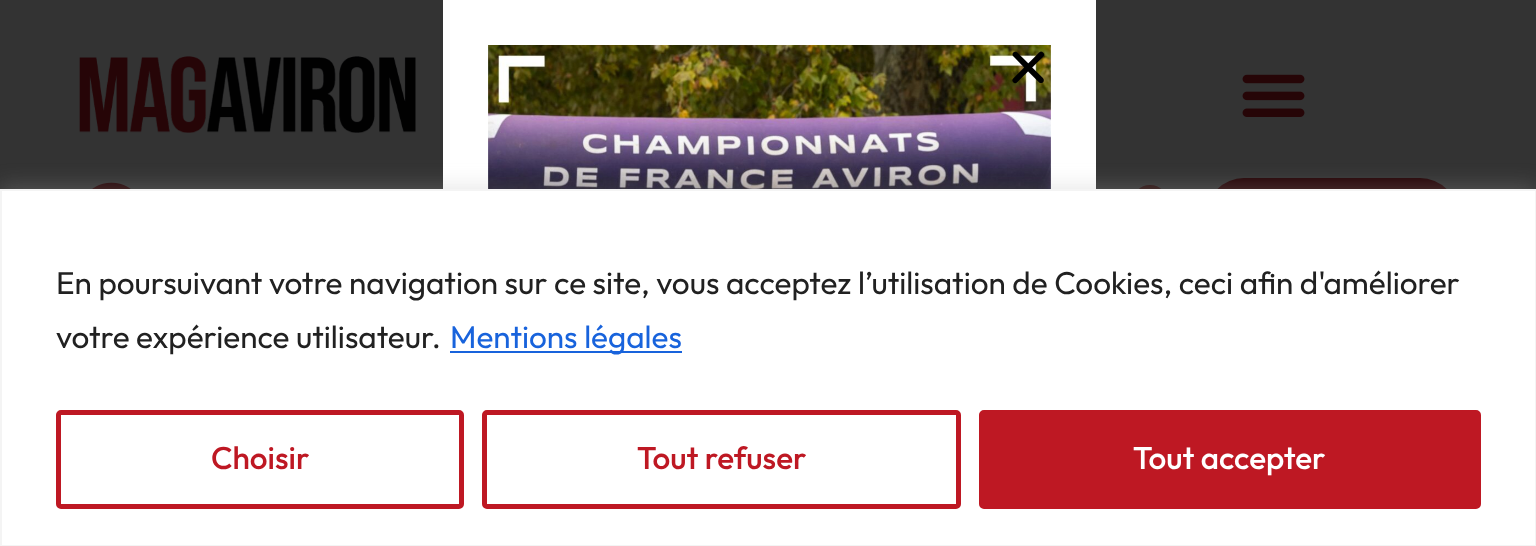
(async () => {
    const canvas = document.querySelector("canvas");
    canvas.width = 1536;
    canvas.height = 546;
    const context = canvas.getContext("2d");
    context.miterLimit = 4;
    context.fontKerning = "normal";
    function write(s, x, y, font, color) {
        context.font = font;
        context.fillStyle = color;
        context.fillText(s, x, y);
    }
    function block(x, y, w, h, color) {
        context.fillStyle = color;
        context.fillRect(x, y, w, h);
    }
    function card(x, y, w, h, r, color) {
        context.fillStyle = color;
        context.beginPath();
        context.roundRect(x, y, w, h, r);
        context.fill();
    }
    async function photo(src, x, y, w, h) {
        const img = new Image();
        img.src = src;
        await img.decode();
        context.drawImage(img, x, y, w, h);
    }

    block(0, 0, 1536, 546, "rgb(51, 51, 51)");
    block(443, 0, 653, 189, "rgb(255, 255, 255)");
    await photo("media/1.png", 488, 45, 563, 144);
    await photo("media/2.png", 1012, 51, 33, 33);
    await photo("media/3.png", 79, 56, 337, 77);
    await photo("media/4.png", 1242, 74, 63, 43);
    await photo("media/5.png", 92, 182, 39, 7);
    context.fillStyle = "rgb(43, 17, 16)";
    context.beginPath();
    context.arc(1150, 203, 18, 0, Math.PI * 2);
    context.fill();
    card(1206, 178, 252, 76, 38, "rgb(38, 5, 7)");
    context.fillStyle = "rgba(172, 171, 171, 0.3)";
    context.filter = "blur(11px)";
    context.beginPath();
    context.rect(0, 187, 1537, 358);
    context.fill();
    context.filter = "none";
    context.fillStyle = "rgb(255, 255, 255)";
    context.beginPath();
    context.rect(1, 190, 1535, 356);
    context.fill();
    context.strokeStyle = "rgb(244, 244, 244)";
    context.lineWidth = 2;
    context.stroke();
    write("En poursuivant votre navigation sur ce site, vous acceptez l’utilisation de Cookies, ceci afin d'améliorer", 56, 294, "31.5px Outfit", "rgb(33, 33, 33)");
    write("votre expérience utilisateur.", 56, 348, "31.5px Outfit", "rgb(33, 33, 33)");
    block(450, 351, 232, 2, "rgb(24, 99, 220)");
    write("Mentions légales", 450, 348, "31.5px Outfit", "rgb(24, 99, 220)");
    context.beginPath();
    context.roundRect(58.5, 412.5, 403, 94, 2.5);
    context.strokeStyle = "rgb(190, 24, 35)";
    context.lineWidth = 5;
    context.stroke();
    write("Choisir", 211, 469, "500 31.5px Outfit", "rgb(190, 24, 35)");
    context.beginPath();
    context.roundRect(484.5, 412.5, 474, 94, 2.5);
    context.stroke();
    write("Tout refuser", 637, 469, "500 31.5px Outfit", "rgb(190, 24, 35)");
    context.beginPath();
    context.roundRect(981.5, 412.5, 497, 94, 2.5);
    context.fill();
    context.stroke();
    write("Tout accepter", 1133, 469, "500 31.5px Outfit", "rgb(255, 255, 255)");
})();
